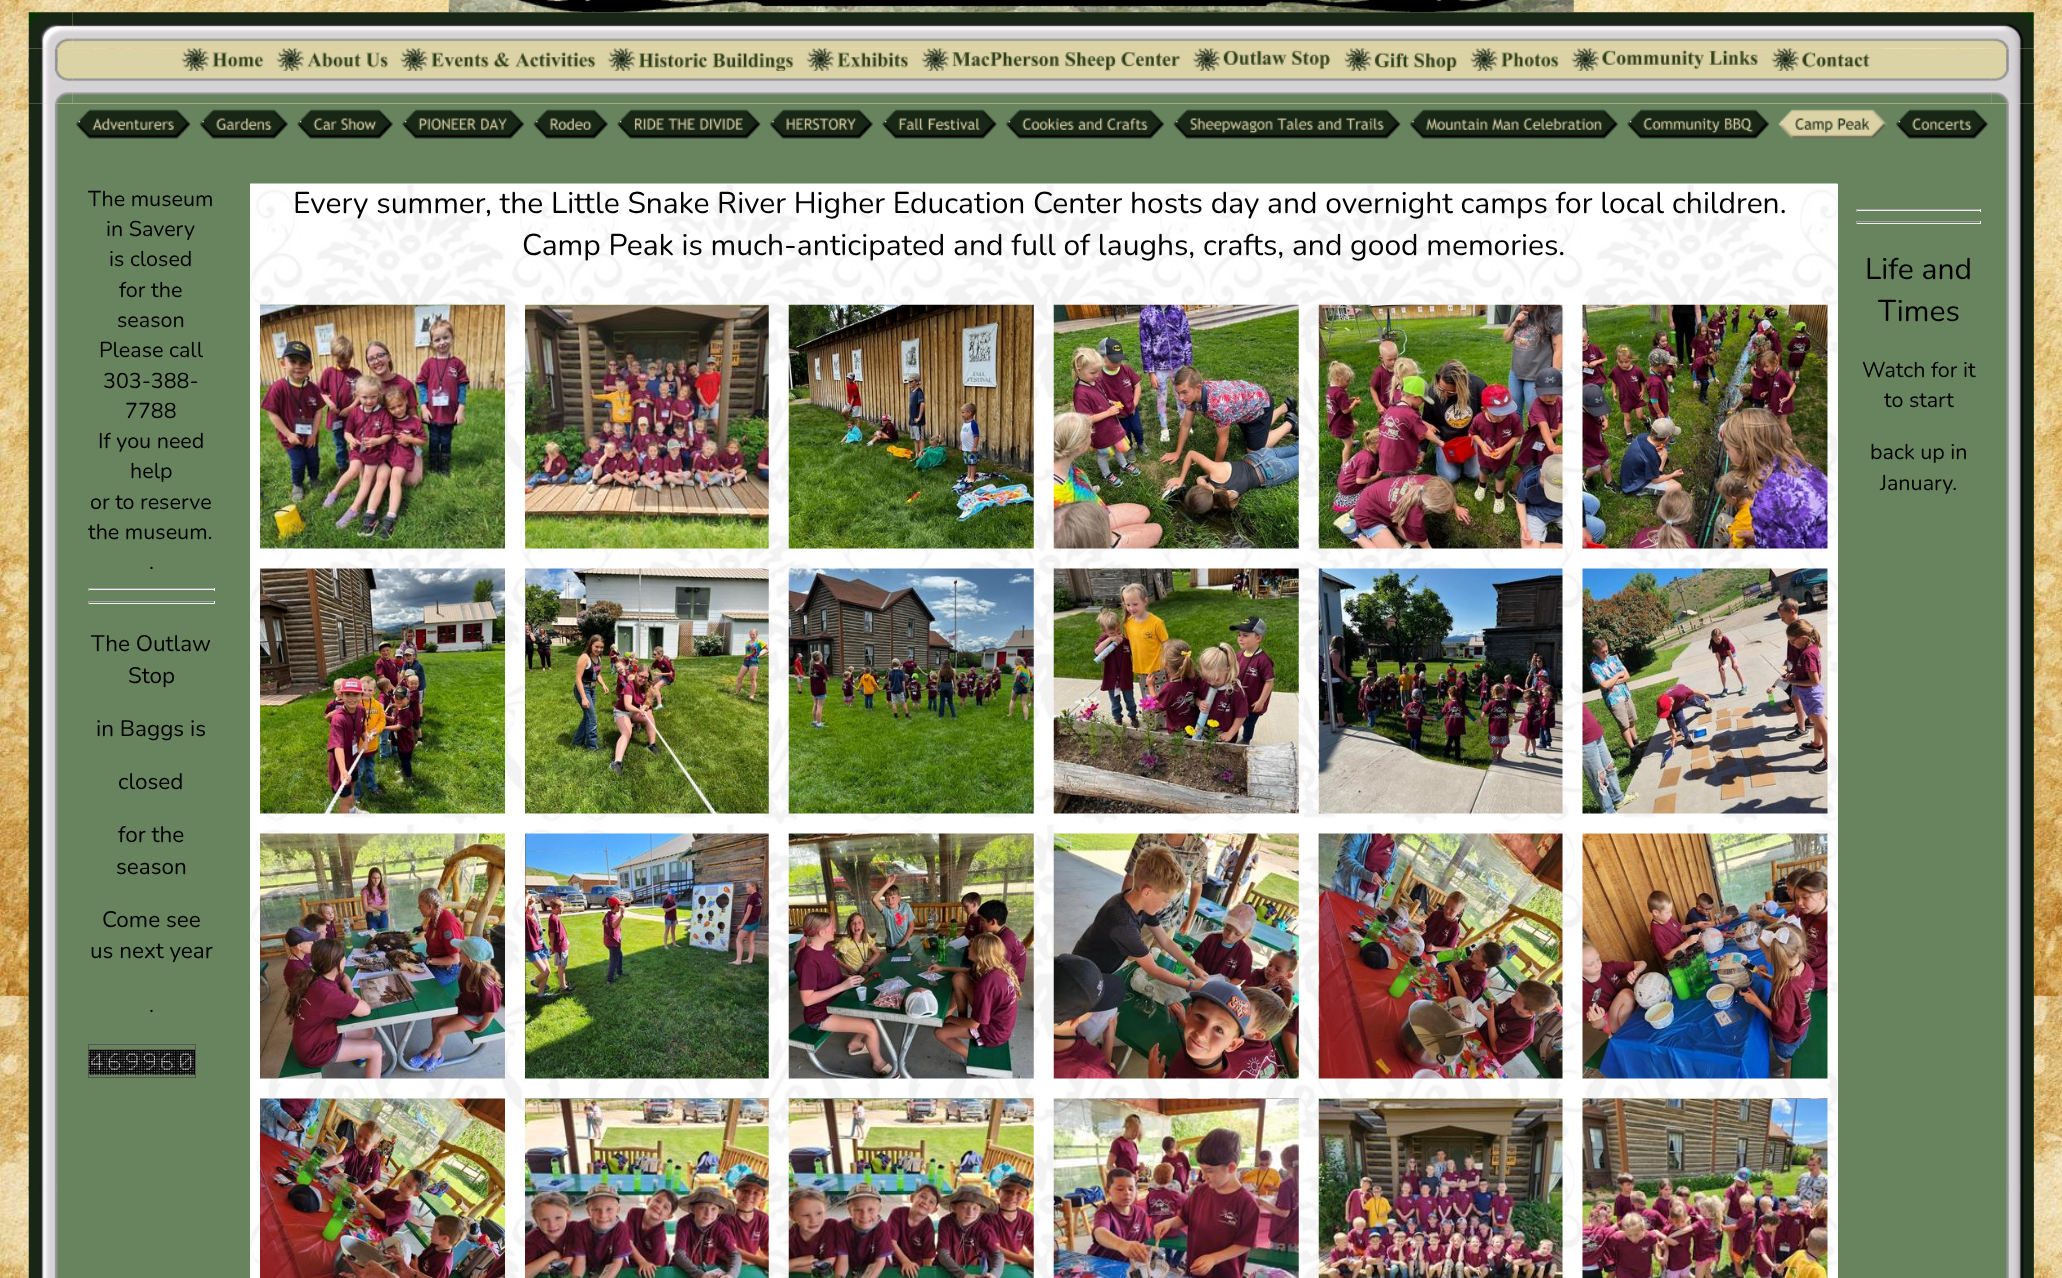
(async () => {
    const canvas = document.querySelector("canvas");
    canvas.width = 2062;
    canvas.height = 1278;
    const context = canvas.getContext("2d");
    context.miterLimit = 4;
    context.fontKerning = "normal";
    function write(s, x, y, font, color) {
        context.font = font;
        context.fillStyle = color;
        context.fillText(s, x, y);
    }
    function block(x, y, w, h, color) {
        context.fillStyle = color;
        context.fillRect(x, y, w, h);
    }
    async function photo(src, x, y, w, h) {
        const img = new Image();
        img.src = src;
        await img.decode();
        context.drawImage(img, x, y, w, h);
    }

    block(0, 0, 2062, 1278, "rgb(255, 255, 255)");
    await photo("media/1.png", 0, 0, 2062, 1278);
    await photo("media/2.png", 448, 0, 1126, 13);
    block(57, 49, 1977, 22, "rgb(219, 210, 166)");
    await photo("media/6.png", 28, 48, 30, 23);
    await photo("media/3.png", 28, 12, 45, 37);
    await photo("media/4.png", 72, 12, 1918, 37);
    await photo("media/19.png", 2006, 48, 28, 23);
    await photo("media/5.png", 1990, 12, 44, 37);
    await photo("media/7.png", 28, 58, 30, 5);
    await photo("media/8.png", 181, 48, 95, 23);
    await photo("media/9.png", 276, 48, 124, 23);
    await photo("media/10.png", 400, 48, 207, 23);
    await photo("media/11.png", 607, 48, 199, 23);
    await photo("media/12.png", 806, 48, 115, 23);
    await photo("media/13.png", 921, 48, 270, 23);
    await photo("media/14.png", 1192, 48, 152, 23);
    await photo("media/15.png", 1343, 48, 127, 23);
    await photo("media/16.png", 1470, 48, 101, 23);
    await photo("media/17.png", 1571, 48, 200, 23);
    await photo("media/18.png", 1771, 48, 113, 23);
    await photo("media/20.png", 2006, 58, 28, 5);
    block(29, 71, 2005, 33, "rgb(219, 210, 166)");
    block(57, 104, 1977, 1174, "rgb(103, 132, 94)");
    await photo("media/24.png", 28, 103, 30, 1175);
    await photo("media/21.png", 28, 71, 45, 33);
    await photo("media/22.png", 72, 78, 1920, 26);
    await photo("media/71.png", 2006, 103, 28, 1175);
    await photo("media/23.png", 1991, 71, 43, 33);
    await photo("media/25.png", 28, 1187, 30, 4);
    await photo("media/26.png", 75, 109, 116, 30);
    await photo("media/27.png", 199, 109, 90, 30);
    await photo("media/28.png", 297, 109, 97, 30);
    await photo("media/29.png", 402, 109, 123, 30);
    await photo("media/30.png", 533, 109, 76, 30);
    await photo("media/31.png", 617, 109, 144, 30);
    await photo("media/32.png", 769, 109, 105, 30);
    await photo("media/33.png", 882, 109, 115, 30);
    await photo("media/34.png", 1005, 109, 160, 30);
    await photo("media/35.png", 1173, 109, 228, 30);
    await photo("media/36.png", 1409, 109, 210, 30);
    await photo("media/37.png", 1627, 109, 143, 30);
    await photo("media/38.png", 1778, 109, 109, 30);
    await photo("media/39.png", 1895, 109, 94, 30);
    write("The museum", 88, 206, "200 21.5px Nunito", "rgb(0, 0, 0)");
    write("in Savery", 106, 236, "200 21.5px Nunito", "rgb(0, 0, 0)");
    write("is closed", 109, 266, "200 21.5px Nunito", "rgb(0, 0, 0)");
    write("for the", 119, 297, "200 21.5px Nunito", "rgb(0, 0, 0)");
    write("season", 117, 327, "200 21.5px Nunito", "rgb(0, 0, 0)");
    write("Please call", 99, 357, "200 21.5px Nunito", "rgb(0, 0, 0)");
    write("303-388-", 103, 388, "200 21.5px Nunito", "rgb(0, 0, 0)");
    write("7788", 125, 418, "200 21.5px Nunito", "rgb(0, 0, 0)");
    write("If you need", 98, 448, "200 21.5px Nunito", "rgb(0, 0, 0)");
    write("help", 130, 478, "200 21.5px Nunito", "rgb(0, 0, 0)");
    write("or to reserve", 90, 509, "200 21.5px Nunito", "rgb(0, 0, 0)");
    write("the museum.", 88, 539, "200 21.5px Nunito", "rgb(0, 0, 0)");
    write(".", 149, 569, "200 21.5px Nunito", "rgb(0, 0, 0)");
    block(88, 588, 127, 1, "rgb(159, 159, 159)");
    block(214, 588, 1, 3, "rgb(238, 238, 238)");
    block(88, 589, 127, 1, "rgb(238, 238, 238)");
    block(88, 588, 1, 3, "rgb(159, 159, 159)");
    block(88, 601, 127, 1, "rgb(159, 159, 159)");
    block(214, 601, 1, 3, "rgb(238, 238, 238)");
    block(88, 603, 127, 1, "rgb(238, 238, 238)");
    block(88, 601, 1, 3, "rgb(159, 159, 159)");
    write("The Outlaw", 91, 651, "200 22.5px Nunito", "rgb(0, 0, 0)");
    write("Stop", 128, 683, "200 22.5px Nunito", "rgb(0, 0, 0)");
    write("in Baggs is", 96, 736, "200 22.5px Nunito", "rgb(0, 0, 0)");
    write("closed", 118, 789, "200 22.5px Nunito", "rgb(0, 0, 0)");
    write("for the", 118, 842, "200 22.5px Nunito", "rgb(0, 0, 0)");
    write("season", 116, 874, "200 22.5px Nunito", "rgb(0, 0, 0)");
    write("Come see", 102, 927, "200 22.5px Nunito", "rgb(0, 0, 0)");
    write("us next year", 90, 958, "200 22.5px Nunito", "rgb(0, 0, 0)");
    write(".", 149, 1012, "200 21.5px Nunito", "rgb(0, 0, 0)");
    context.strokeStyle = "rgb(85, 85, 85)";
    context.strokeRect(88.5, 1044.5, 107, 33);
    await photo("media/40.png", 88, 1049, 19, 26);
    await photo("media/41.png", 106, 1049, 18, 26);
    await photo("media/42.png", 123, 1049, 19, 26);
    await photo("media/43.png", 141, 1049, 18, 26);
    await photo("media/44.png", 158, 1049, 19, 26);
    await photo("media/45.png", 176, 1049, 19, 26);
    block(1837, 184, 1, 1094, "rgb(255, 255, 255)");
    await photo("media/46.png", 250, 183, 1588, 1095);
    write("Every summer, the Little Snake River Higher Education Center hosts day and overnight camps for local children.", 293, 213, "200 30px Nunito", "rgb(0, 0, 0)");
    write("Camp Peak is much-anticipated and full of laughs, crafts, and good memories.", 522, 255, "200 30px Nunito", "rgb(0, 0, 0)");
    await photo("media/47.png", 260, 304, 245, 245);
    await photo("media/48.png", 525, 304, 244, 245);
    await photo("media/49.png", 788, 304, 246, 245);
    await photo("media/50.png", 1053, 304, 246, 245);
    await photo("media/51.png", 1318, 304, 245, 245);
    await photo("media/52.png", 1582, 304, 246, 245);
    await photo("media/53.png", 260, 568, 245, 246);
    await photo("media/54.png", 525, 568, 244, 246);
    await photo("media/55.png", 788, 568, 246, 246);
    await photo("media/56.png", 1053, 568, 246, 246);
    await photo("media/57.png", 1318, 568, 245, 246);
    await photo("media/58.png", 1582, 568, 246, 246);
    await photo("media/59.png", 260, 833, 245, 246);
    await photo("media/60.png", 525, 833, 244, 246);
    await photo("media/61.png", 788, 833, 246, 246);
    await photo("media/62.png", 1053, 833, 246, 246);
    await photo("media/63.png", 1318, 833, 245, 246);
    await photo("media/64.png", 1582, 833, 246, 246);
    await photo("media/65.png", 260, 1098, 245, 180);
    await photo("media/66.png", 525, 1098, 244, 180);
    await photo("media/67.png", 788, 1098, 246, 180);
    await photo("media/68.png", 1053, 1098, 246, 180);
    await photo("media/69.png", 1318, 1098, 245, 180);
    await photo("media/70.png", 1582, 1098, 246, 180);
    block(1856, 209, 125, 1, "rgb(159, 159, 159)");
    block(1980, 209, 1, 3, "rgb(238, 238, 238)");
    block(1856, 210, 125, 1, "rgb(238, 238, 238)");
    block(1856, 209, 1, 3, "rgb(159, 159, 159)");
    block(1856, 221, 125, 1, "rgb(159, 159, 159)");
    block(1980, 221, 1, 3, "rgb(238, 238, 238)");
    block(1856, 223, 125, 1, "rgb(238, 238, 238)");
    block(1856, 221, 1, 3, "rgb(159, 159, 159)");
    write("Life and", 1865, 279, "200 30px Nunito", "rgb(0, 0, 0)");
    write("Times", 1878, 321, "200 30px Nunito", "rgb(0, 0, 0)");
    write("Watch for it", 1862, 377, "200 21.5px Nunito", "rgb(0, 0, 0)");
    write("to start", 1884, 407, "200 21.5px Nunito", "rgb(0, 0, 0)");
    write("back up in", 1870, 459, "200 21.5px Nunito", "rgb(0, 0, 0)");
    write("January.", 1880, 490, "200 21.5px Nunito", "rgb(0, 0, 0)");
    await photo("media/72.png", 2006, 1187, 28, 4);
})();
